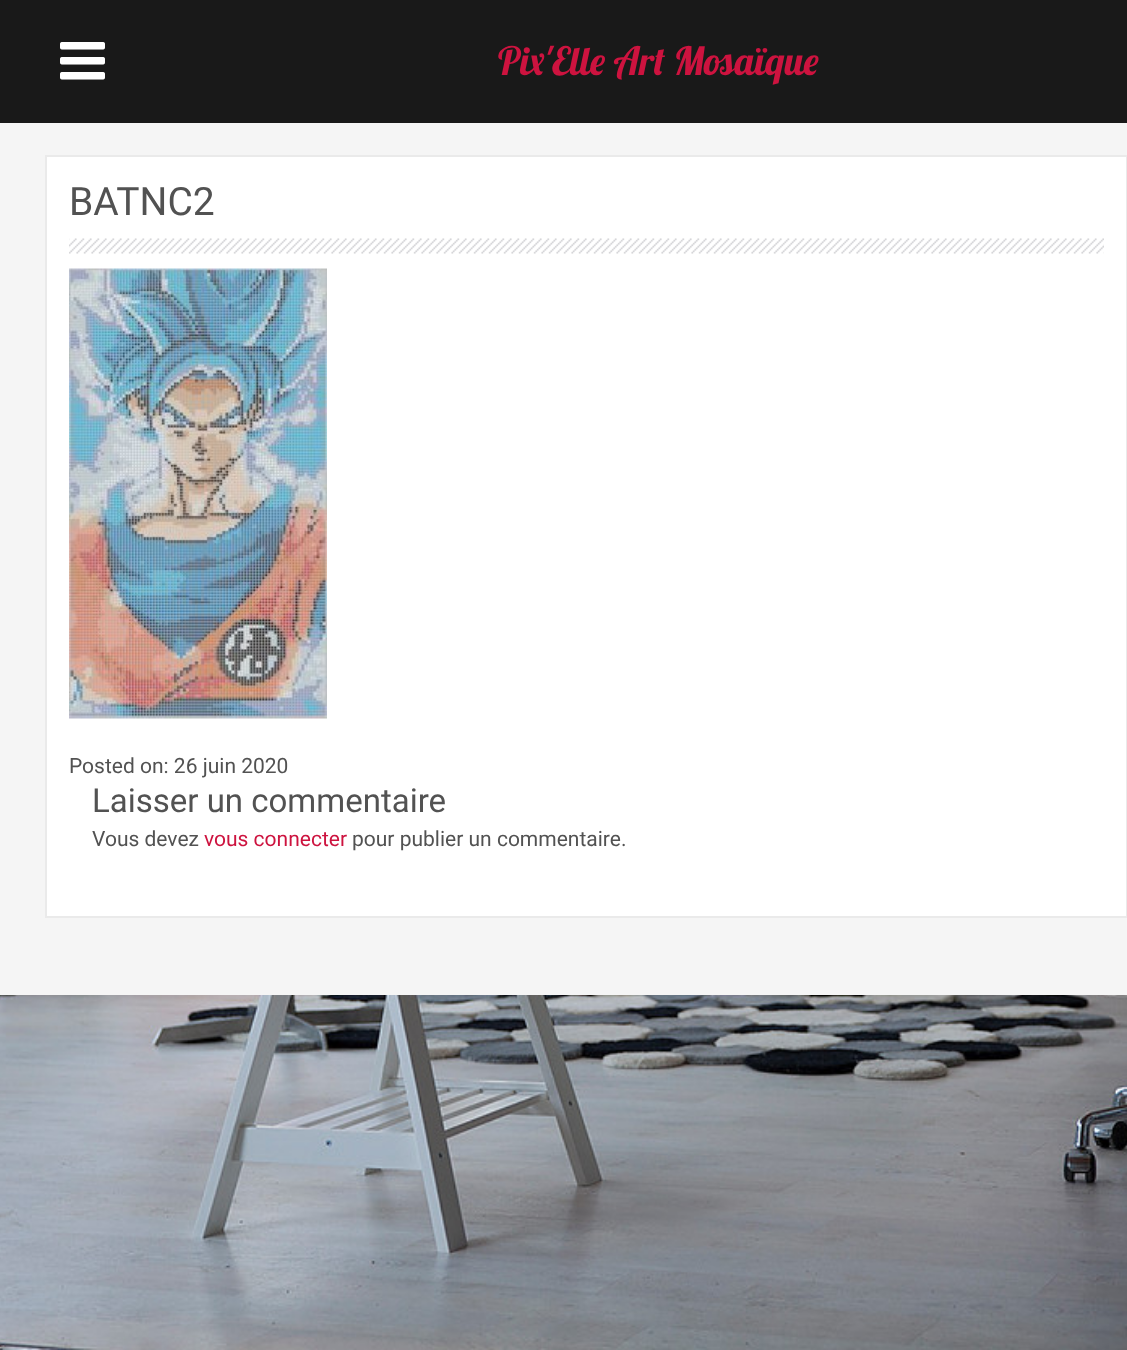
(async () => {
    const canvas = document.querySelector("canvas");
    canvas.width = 1127;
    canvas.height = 1350;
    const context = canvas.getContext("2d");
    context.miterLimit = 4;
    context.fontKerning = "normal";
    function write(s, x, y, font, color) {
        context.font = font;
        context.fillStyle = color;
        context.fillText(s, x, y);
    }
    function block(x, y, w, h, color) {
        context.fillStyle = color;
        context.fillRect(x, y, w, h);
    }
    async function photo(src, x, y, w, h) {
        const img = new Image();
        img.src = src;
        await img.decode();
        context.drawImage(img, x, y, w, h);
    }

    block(0, 0, 1127, 1350, "rgb(255, 255, 255)");
    await photo("media/1.png", 0, 995, 1127, 355);
    block(0, 0, 1127, 123, "rgb(25, 25, 25)");
    await photo("media/2.png", 60, 42, 45, 38);
    write("Pix'Elle Art Mosaïque", 498, 75, "39px Lobster", "rgb(205, 19, 63)");
    block(0, 123, 1127, 872, "rgb(245, 245, 245)");
    context.fillStyle = "rgb(255, 255, 255)";
    context.beginPath();
    context.rect(46, 156, 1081, 761);
    context.fill();
    context.strokeStyle = "rgb(234, 234, 234)";
    context.lineWidth = 2;
    context.stroke();
    write("BATNC2", 69, 215, "39px Roboto", "rgb(82, 82, 82)");
    await photo("media/3.png", 69, 238, 1035, 16);
    await photo("media/4.png", 69, 268, 258, 451);
    write("Posted on: 26 juin 2020", 69, 773, "21px Roboto", "rgb(82, 82, 82)");
    write("Laisser un commentaire", 92, 812, "33px Roboto", "rgb(82, 82, 82)");
    write("Vous devez", 92, 846, "21px Roboto", "rgb(82, 82, 82)");
    write("vous connecter", 204, 846, "21px Roboto", "rgb(205, 19, 63)");
    write("pour publier un commentaire.", 352, 846, "21px Roboto", "rgb(82, 82, 82)");
})();
